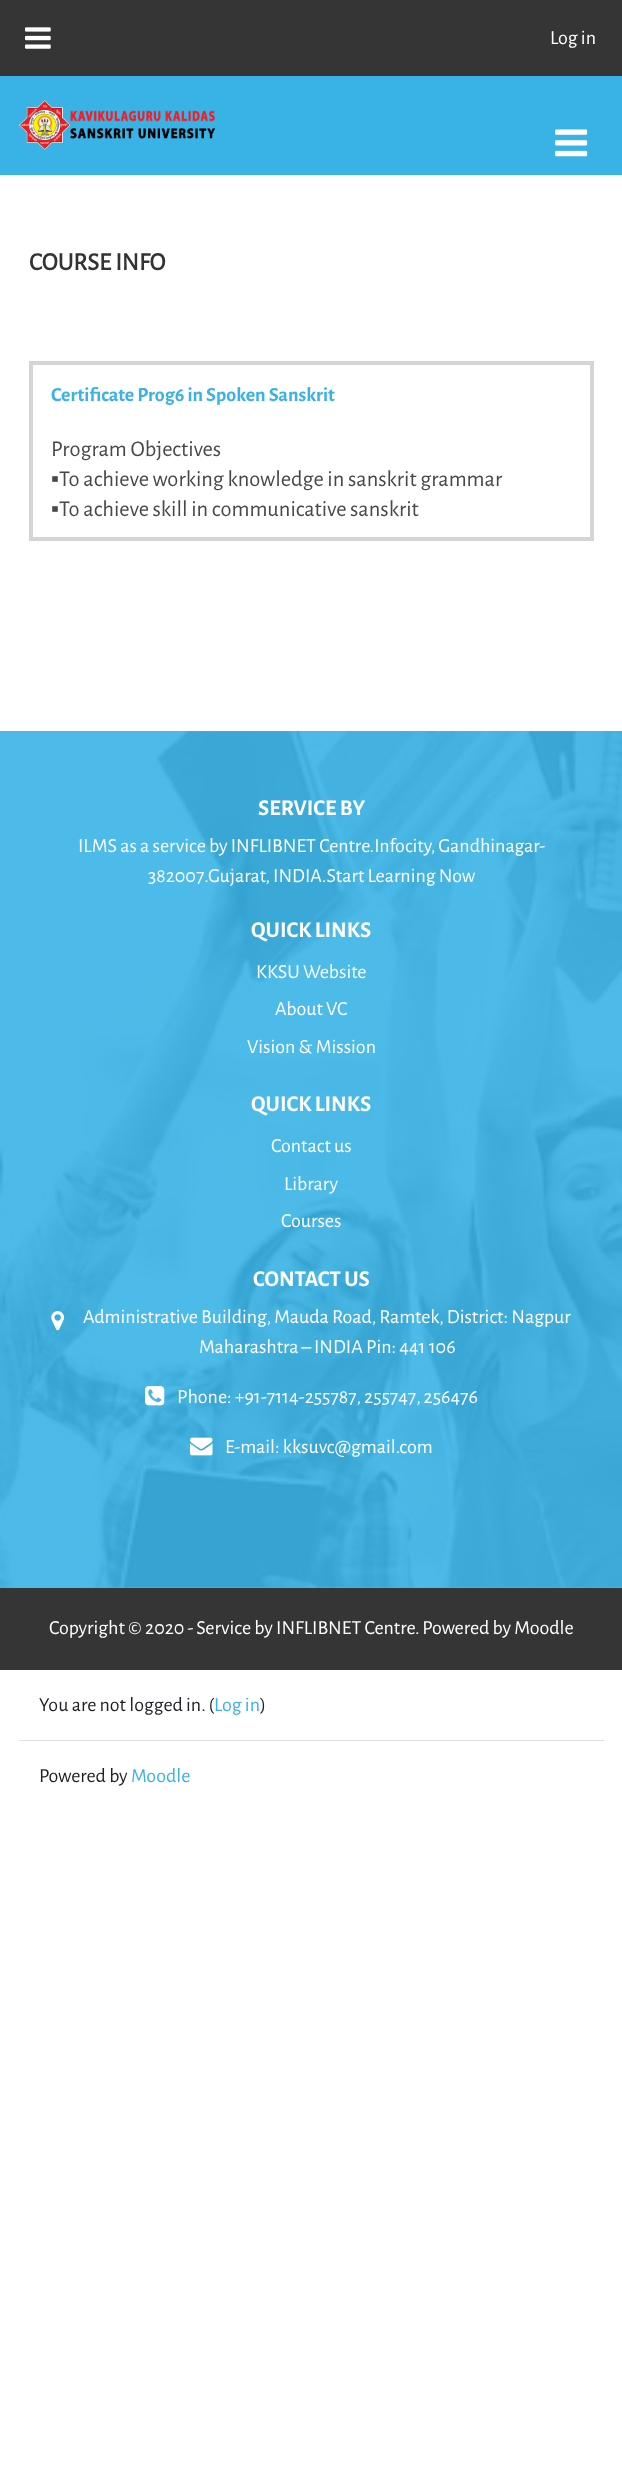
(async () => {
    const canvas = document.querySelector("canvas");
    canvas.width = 622;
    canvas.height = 2471;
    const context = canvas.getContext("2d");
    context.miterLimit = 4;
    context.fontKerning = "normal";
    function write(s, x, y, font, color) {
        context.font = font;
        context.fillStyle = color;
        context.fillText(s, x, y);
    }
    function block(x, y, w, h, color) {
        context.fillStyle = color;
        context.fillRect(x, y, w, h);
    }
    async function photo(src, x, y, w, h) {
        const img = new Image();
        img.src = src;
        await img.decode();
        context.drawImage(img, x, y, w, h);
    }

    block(0, 0, 622, 2471, "rgb(255, 255, 255)");
    block(0, 731, 622, 857, "rgb(77, 187, 233)");
    block(0, 0, 622, 76, "rgb(53, 53, 53)");
    await photo("media/1.png", 25, 27, 26, 22);
    write("Log in", 550, 44, "20px Alegreya Sans", "rgb(255, 255, 255)");
    block(0, 76, 622, 99, "rgb(57, 179, 230)");
    await photo("media/2.png", 18, 100, 198, 50);
    await photo("media/3.png", 555, 129, 33, 28);
    write("COURSE INFO", 29, 270, "bold 25px Alegreya Sans", "rgb(51, 51, 51)");
    context.strokeStyle = "rgb(213, 213, 213)";
    context.lineWidth = 4;
    context.strokeRect(31, 363, 561, 176);
    write("Certificate Prog6 in Spoken Sanskrit", 51, 401, "bold 20px 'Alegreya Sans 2'", "rgb(57, 179, 230)");
    write("Program Objectives", 51, 456, "22.5px Alegreya Sans", "rgb(72, 72, 72)");
    write("▪︎", 51, 486, "22.5px Liberation Serif", "rgb(72, 72, 72)");
    write("To achieve working knowledge in sanskrit grammar", 59, 486, "22.5px Alegreya Sans", "rgb(72, 72, 72)");
    write("▪︎", 51, 516, "22.5px Liberation Serif", "rgb(72, 72, 72)");
    write("To achieve skill in communicative sanskrit", 59, 516, "22.5px Alegreya Sans", "rgb(72, 72, 72)");
    await photo("media/4.png", 0, 731, 622, 857);
    write("SERVICE BY", 258, 815, "bold 22.5px 'Alegreya Sans 2'", "rgb(255, 255, 255)");
    write("ILMS as a service by INFLIBNET Centre.Infocity, Gandhinagar-", 78, 852, "20px Alegreya Sans", "rgb(255, 255, 255)");
    write("382007.Gujarat, INDIA.Start Learning Now", 148, 882, "20px Alegreya Sans", "rgb(255, 255, 255)");
    write("QUICK LINKS", 251, 937, "bold 22.5px 'Alegreya Sans 2'", "rgb(255, 255, 255)");
    write("KKSU Website", 256, 978, "20px Alegreya Sans", "rgb(255, 255, 255)");
    write("About VC", 275, 1015, "20px Alegreya Sans", "rgb(255, 255, 255)");
    write("Vision & Mission", 247, 1053, "20px Alegreya Sans", "rgb(255, 255, 255)");
    write("QUICK LINKS", 251, 1111, "bold 22.5px 'Alegreya Sans 2'", "rgb(255, 255, 255)");
    write("Contact us", 271, 1152, "20px Alegreya Sans", "rgb(255, 255, 255)");
    write("Library", 284, 1190, "20px Alegreya Sans", "rgb(255, 255, 255)");
    write("Courses", 281, 1227, "20px Alegreya Sans", "rgb(255, 255, 255)");
    write("CONTACT US", 253, 1286, "bold 22.5px 'Alegreya Sans 2'", "rgb(255, 255, 255)");
    await photo("media/5.png", 51, 1311, 14, 20);
    write("Administrative Building, Mauda Road, Ramtek, District: Nagpur", 83, 1323, "20px Alegreya Sans", "rgb(255, 255, 255)");
    write("Maharashtra – INDIA Pin: 441 106", 199, 1353, "20px Alegreya Sans", "rgb(255, 255, 255)");
    await photo("media/6.png", 145, 1386, 20, 20);
    write("Phone: +91-7114-255787, 255747, 256476", 177, 1403, "20px Alegreya Sans", "rgb(255, 255, 255)");
    await photo("media/7.png", 190, 1437, 23, 19);
    write("E-mail: kksuvc@gmail.com", 225, 1453, "20px Alegreya Sans", "rgb(255, 255, 255)");
    block(0, 1588, 622, 82, "rgb(53, 53, 53)");
    write("Copyright © 2020 - Service by INFLIBNET Centre. Powered by Moodle", 49, 1634, "20px Alegreya Sans", "rgb(255, 255, 255)");
    block(19, 1740, 585, 1, "rgb(222, 226, 230)");
    write("You are not logged in. (", 39, 1711, "20px Alegreya Sans", "rgb(29, 33, 37)");
    write("Log in", 214, 1711, "20px Alegreya Sans", "rgb(57, 179, 230)");
    write(")", 260, 1711, "20px Alegreya Sans", "rgb(29, 33, 37)");
    write("Powered by", 39, 1782, "20px Alegreya Sans", "rgb(29, 33, 37)");
    write("Moodle", 131, 1782, "20px Alegreya Sans", "rgb(57, 179, 230)");
})();
